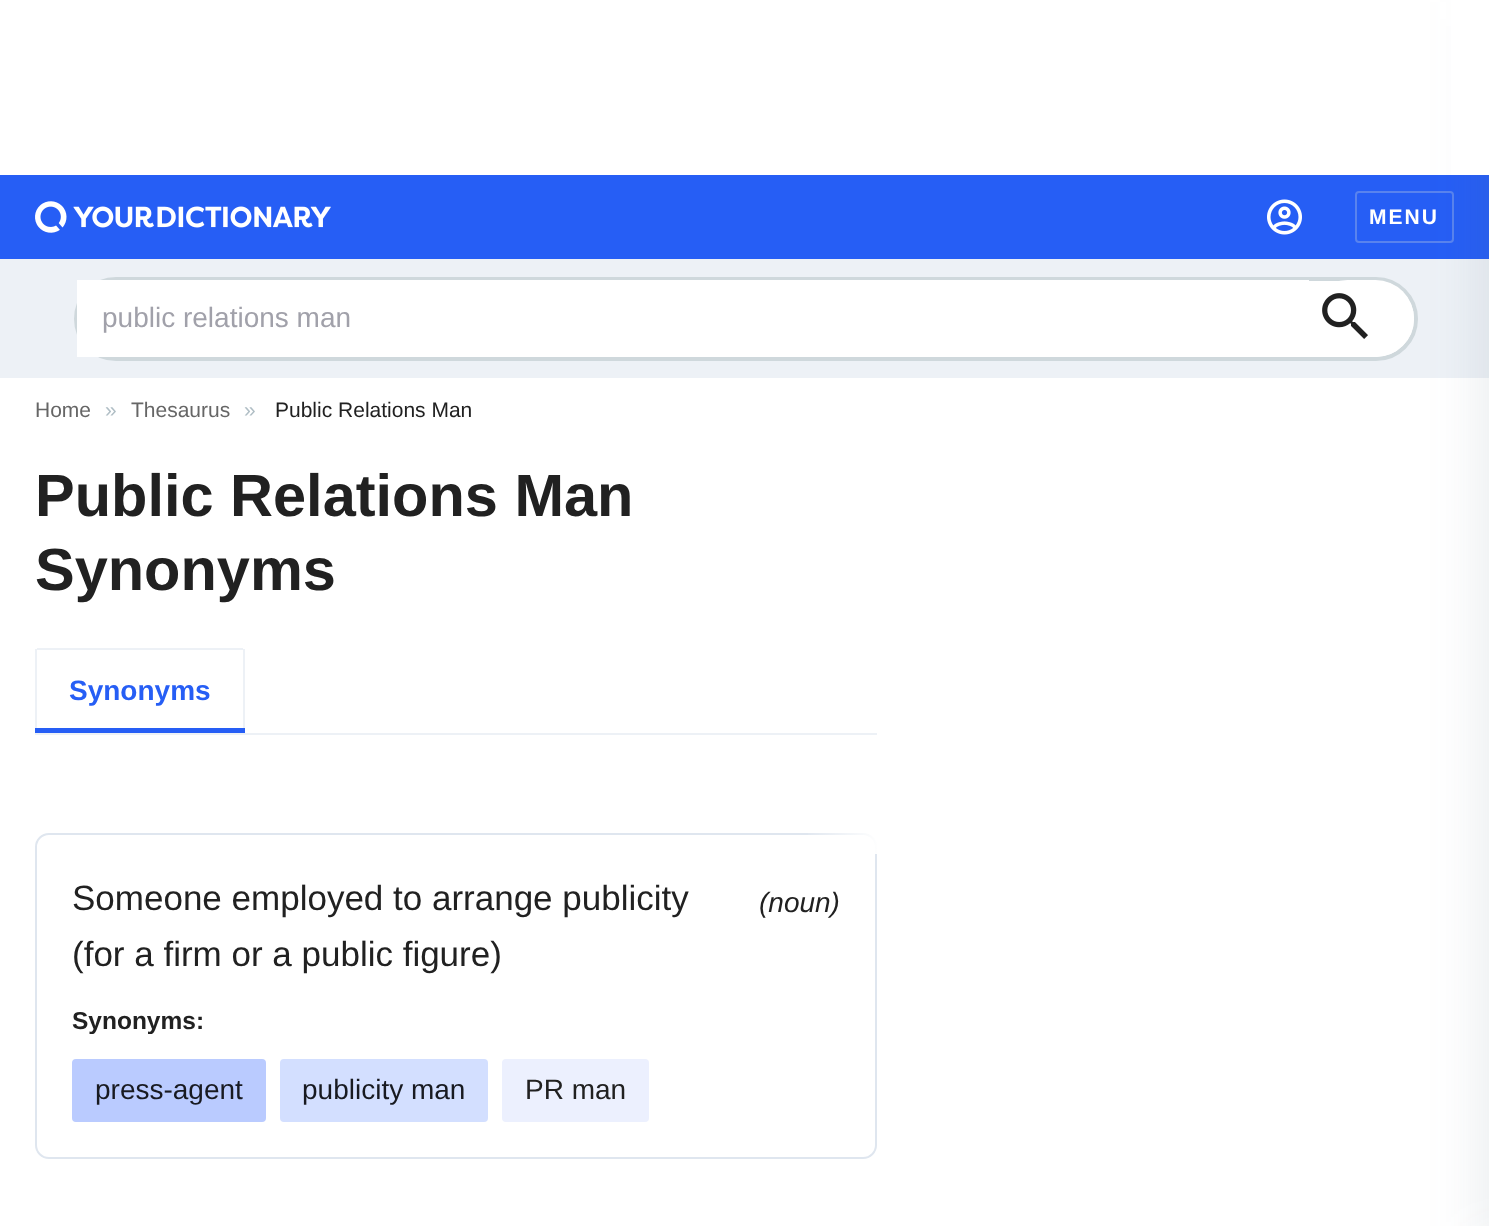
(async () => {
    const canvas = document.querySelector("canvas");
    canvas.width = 1489;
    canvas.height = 1226;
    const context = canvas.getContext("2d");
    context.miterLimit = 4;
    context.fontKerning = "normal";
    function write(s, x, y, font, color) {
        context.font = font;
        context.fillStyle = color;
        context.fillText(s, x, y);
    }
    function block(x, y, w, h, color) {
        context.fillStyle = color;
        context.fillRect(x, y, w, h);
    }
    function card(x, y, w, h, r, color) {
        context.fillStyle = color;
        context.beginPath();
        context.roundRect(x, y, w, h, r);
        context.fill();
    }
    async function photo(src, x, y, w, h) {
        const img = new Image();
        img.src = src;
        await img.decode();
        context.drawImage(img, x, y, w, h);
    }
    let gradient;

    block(0, 0, 1489, 1226, "rgb(255, 255, 255)");
    block(0, 175, 1489, 84, "rgb(38, 94, 245)");
    context.beginPath();
    context.roundRect(1356, 192, 97, 50, 3);
    context.strokeStyle = "rgb(89, 131, 238)";
    context.lineWidth = 2;
    context.stroke();
    block(0, 259, 1489, 119, "rgb(237, 241, 246)");
    context.fillStyle = "rgb(255, 255, 255)";
    context.beginPath();
    context.roundRect(76, 279, 1340, 80, 40);
    context.fill();
    context.strokeStyle = "rgb(207, 216, 220)";
    context.lineWidth = 4;
    context.stroke();
    card(1309, 280, 105, 77, 38.5, "rgb(255, 255, 255)");
    context.fillStyle = "rgba(84, 110, 122, 0.12)";
    context.filter = "blur(26px)";
    context.beginPath();
    context.rect(1481, 2, 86, 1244);
    context.fill();
    context.filter = "none";
    block(1451, 0, 38, 175, "rgb(255, 255, 255)");
    await photo("media/1.png", 35, 201, 296, 32);
    await photo("media/2.png", 1267, 199, 35, 36);
    context.letterSpacing = "2px";
    write("MENU", 1369, 224, "bold 21px Liberation Sans", "rgb(255, 255, 255)");
    block(77, 280, 1232, 77, "rgb(255, 255, 255)");
    context.letterSpacing = "0px";
    write("public relations man", 102, 327, "28px Liberation Sans", "rgb(161, 161, 170)");
    await photo("media/3.png", 1322, 293, 46, 46);
    write("Home", 35, 417, "21px Liberation Sans", "rgb(102, 102, 102)");
    write("»", 105, 417, "21px Liberation Sans", "rgb(176, 190, 197)");
    write("Thesaurus", 131, 417, "21px Liberation Sans", "rgb(102, 102, 102)");
    write("»", 244, 417, "21px Liberation Sans", "rgb(176, 190, 197)");
    write("Public Relations Man", 275, 417, "21px Liberation Sans", "rgb(33, 33, 33)");
    write("Public Relations Man", 35, 516, "bold 59.5px Liberation Sans", "rgb(33, 33, 33)");
    write("Synonyms", 35, 590, "bold 59.5px Liberation Sans", "rgb(33, 33, 33)");
    block(35, 733, 842, 2, "rgb(237, 241, 246)");
    block(37, 648, 206, 2, "rgb(237, 241, 246)");
    block(243, 649, 2, 84, "rgb(237, 241, 246)");
    block(35, 649, 2, 84, "rgb(237, 241, 246)");
    write("Synonyms", 69, 700, "bold 28px Liberation Sans", "rgb(38, 94, 245)");
    block(35, 728, 210, 5, "rgb(38, 94, 245)");
    context.beginPath();
    context.roundRect(36, 834, 840, 324, 13);
    context.strokeStyle = "rgb(223, 230, 239)";
    context.lineWidth = 2;
    context.stroke();
    gradient = context.createLinearGradient(802, 817, 880, 817);
    gradient.addColorStop(0, "rgba(255, 255, 255, 0)");
    gradient.addColorStop(1, "rgb(255, 255, 255)");
    context.fillStyle = gradient;
    context.fillRect(808, 833, 69, 21);
    write("Someone employed to arrange publicity", 72, 910, "35px Liberation Sans", "rgb(33, 33, 33)");
    write("(for a firm or a public figure)", 72, 966, "35px Liberation Sans", "rgb(33, 33, 33)");
    write("(noun)", 759, 912, "italic 28px Liberation Sans", "rgb(33, 33, 33)");
    write("Synonyms:", 72, 1029, "bold 24.5px Liberation Sans", "rgb(33, 33, 33)");
    context.fillStyle = "rgb(186, 203, 255)";
    context.beginPath();
    context.roundRect(73, 1060, 192, 61, 3);
    context.fill();
    context.strokeStyle = "rgb(186, 203, 255)";
    context.stroke();
    write("press-agent", 95, 1099, "28px Liberation Sans", "rgb(24, 26, 33)");
    context.fillStyle = "rgb(211, 223, 255)";
    context.beginPath();
    context.roundRect(281, 1060, 206, 61, 3);
    context.fill();
    context.strokeStyle = "rgb(211, 223, 255)";
    context.stroke();
    write("publicity man", 302, 1099, "28px Liberation Sans", "rgb(24, 26, 33)");
    context.fillStyle = "rgb(236, 240, 254)";
    context.beginPath();
    context.roundRect(503, 1060, 145, 61, 3);
    context.fill();
    context.strokeStyle = "rgb(236, 240, 254)";
    context.stroke();
    write("PR man", 525, 1099, "28px Liberation Sans", "rgb(33, 33, 33)");
})();
